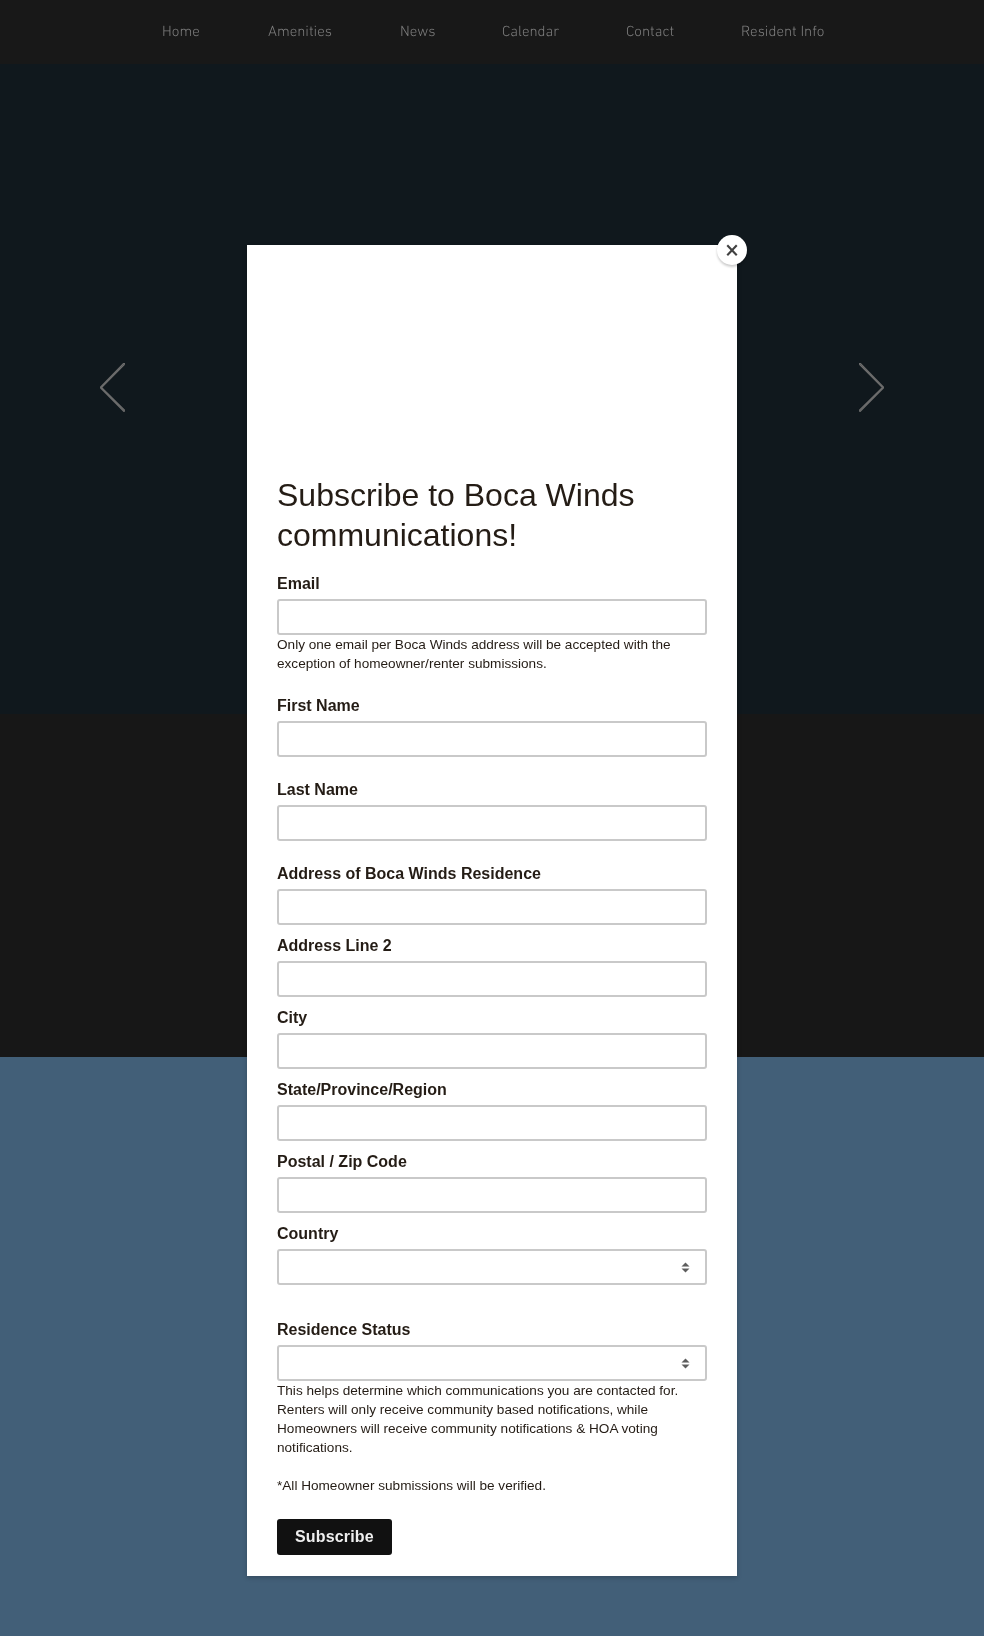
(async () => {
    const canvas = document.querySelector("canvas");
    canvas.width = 984;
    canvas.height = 1636;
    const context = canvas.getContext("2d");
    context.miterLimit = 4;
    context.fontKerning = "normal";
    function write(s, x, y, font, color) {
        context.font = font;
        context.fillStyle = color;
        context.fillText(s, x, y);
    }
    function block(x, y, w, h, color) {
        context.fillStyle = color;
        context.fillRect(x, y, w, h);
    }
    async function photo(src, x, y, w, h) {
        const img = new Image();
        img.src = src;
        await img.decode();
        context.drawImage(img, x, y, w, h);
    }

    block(0, 0, 984, 1636, "rgb(66, 95, 120)");
    block(0, 0, 984, 64, "rgb(24, 24, 24)");
    write("Home", 162, 36, "300 15px 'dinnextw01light'", "rgb(125, 125, 125)");
    write("Amenities", 268, 36, "300 15px 'dinnextw01light'", "rgb(125, 125, 125)");
    write("News", 400, 36, "300 15px 'dinnextw01light'", "rgb(125, 125, 125)");
    write("Calendar", 502, 36, "300 15px 'dinnextw01light'", "rgb(125, 125, 125)");
    write("Contact", 626, 36, "300 15px 'dinnextw01light'", "rgb(125, 125, 125)");
    write("Resident Info", 741, 36, "300 15px 'dinnextw01light'", "rgb(125, 125, 125)");
    block(0, 64, 984, 650, "rgb(16, 24, 29)");
    context.save();
    context.beginPath();
    context.rect(100, 363, 25, 49);
    context.clip();
    context.beginPath();
    context.moveTo(124, 411.5);
    context.lineTo(100, 387.5);
    context.lineTo(124, 363);
    context.lineTo(125, 364);
    context.lineTo(101.5, 387.5);
    context.lineTo(125, 410.5);
    context.closePath();
    context.strokeStyle = "rgb(107, 107, 107)";
    context.lineWidth = 1.2;
    context.stroke();
    context.restore();
    context.save();
    context.beginPath();
    context.rect(859, 363, 25, 49);
    context.clip();
    context.beginPath();
    context.moveTo(860, 411.5);
    context.lineTo(884, 387.5);
    context.lineTo(860, 363);
    context.lineTo(859, 364);
    context.lineTo(882.5, 387.5);
    context.lineTo(859, 410.5);
    context.closePath();
    context.strokeStyle = "rgb(107, 107, 107)";
    context.lineWidth = 1.2;
    context.stroke();
    context.restore();
    block(0, 714, 984, 343, "rgb(23, 23, 23)");
    context.fillStyle = "rgba(0, 0, 0, 0.2)";
    context.filter = "blur(2px)";
    context.beginPath();
    context.rect(247, 247, 490, 1331);
    context.fill();
    context.filter = "none";
    await photo("media/1.png", 247, 245, 490, 1331);
    context.filter = "blur(1px)";
    context.beginPath();
    context.roundRect(717, 237, 30, 30, 15);
    context.fill();
    context.filter = "none";
    context.fillStyle = "rgb(255, 255, 255)";
    context.beginPath();
    context.arc(732, 250, 15, 0, Math.PI * 2);
    context.fill();
    context.fillStyle = "rgb(65, 65, 65)";
    context.beginPath();
    context.moveTo(736, 244.5);
    context.lineTo(737.5, 246);
    context.lineTo(728, 256);
    context.lineTo(726.5, 254.5);
    context.closePath();
    context.fill();
    context.beginPath();
    context.moveTo(726.5, 246);
    context.lineTo(728, 244.5);
    context.lineTo(737.5, 254.5);
    context.lineTo(736, 256);
    context.closePath();
    context.fill();
})();
